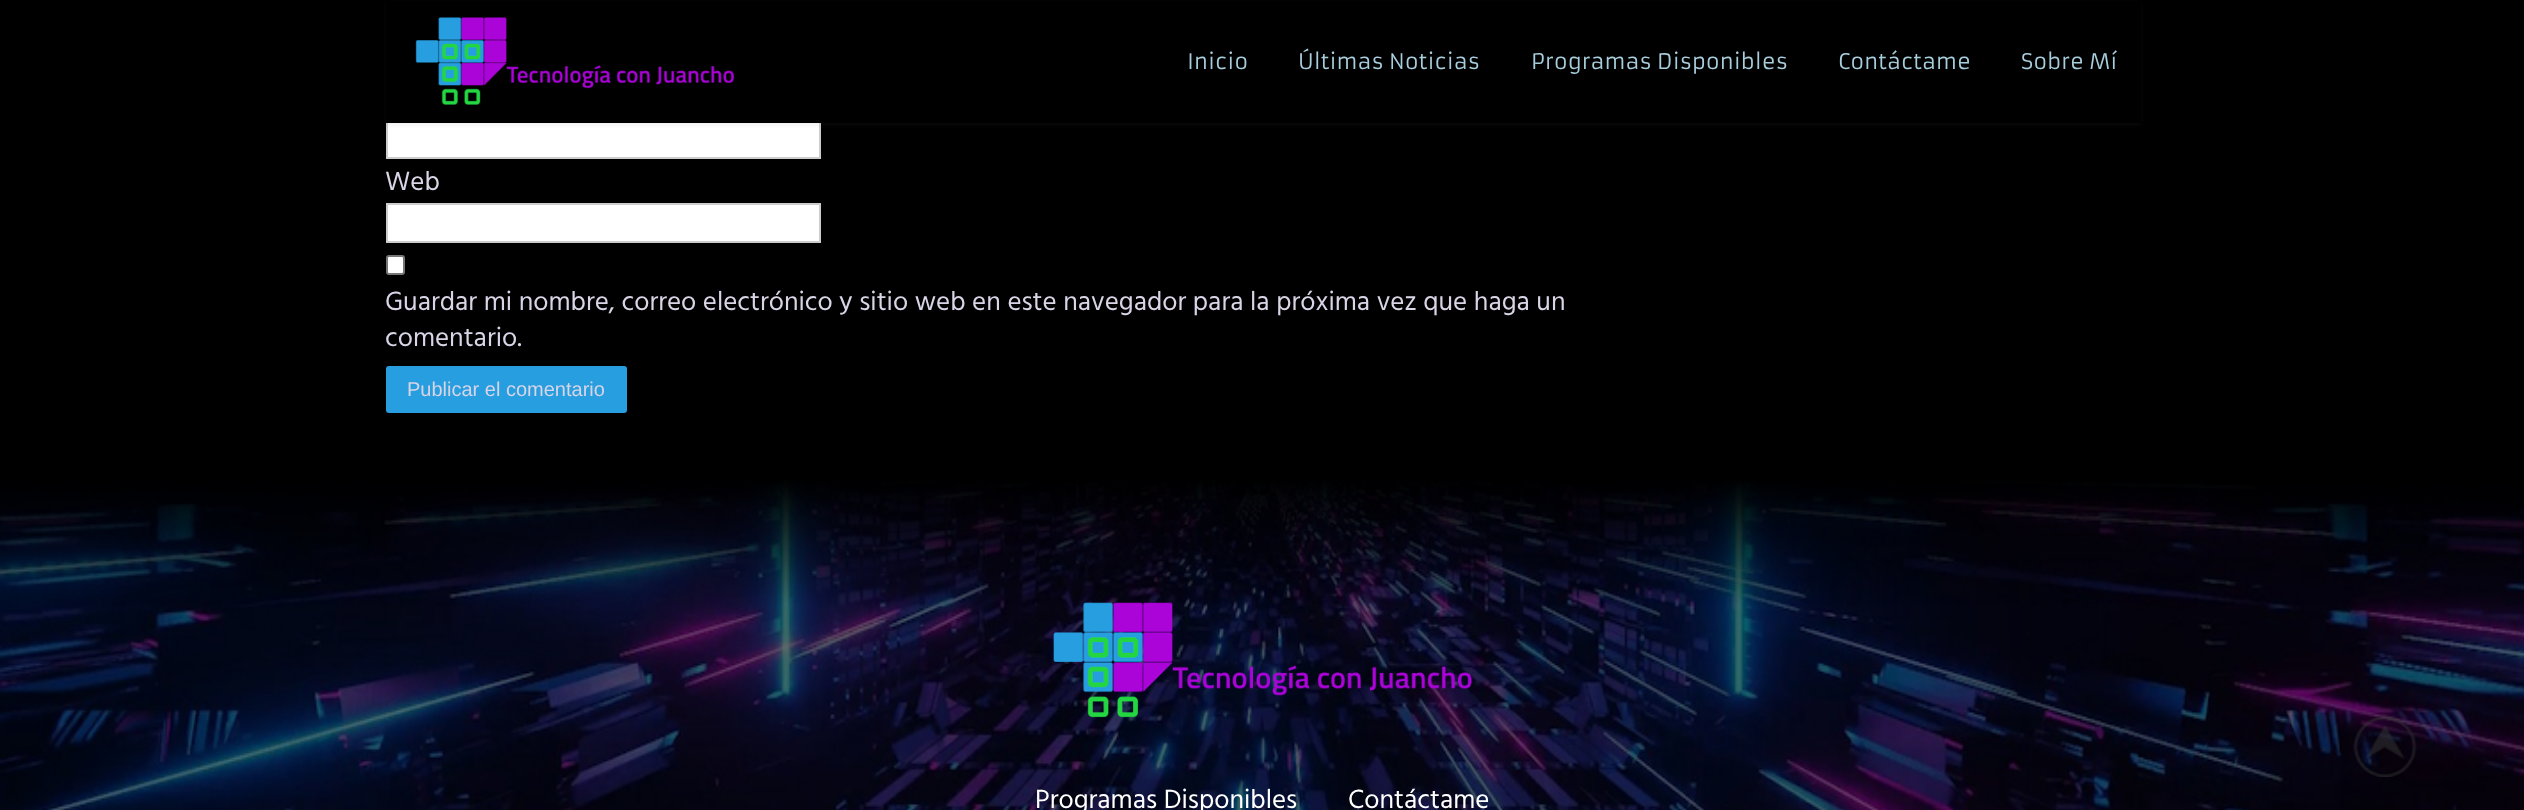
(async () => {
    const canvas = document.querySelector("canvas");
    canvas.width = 2524;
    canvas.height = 810;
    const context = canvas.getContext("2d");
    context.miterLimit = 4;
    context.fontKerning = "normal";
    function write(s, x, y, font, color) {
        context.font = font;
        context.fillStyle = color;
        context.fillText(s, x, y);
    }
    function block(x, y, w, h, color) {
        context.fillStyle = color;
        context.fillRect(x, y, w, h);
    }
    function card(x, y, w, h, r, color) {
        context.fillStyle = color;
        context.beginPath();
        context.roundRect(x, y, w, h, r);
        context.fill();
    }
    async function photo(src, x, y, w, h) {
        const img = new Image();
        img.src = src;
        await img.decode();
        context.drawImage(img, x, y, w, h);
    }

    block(0, 0, 2524, 810, "rgb(0, 0, 0)");
    block(388, 123, 431, 34, "rgb(255, 255, 255)");
    context.strokeStyle = "rgb(204, 204, 204)";
    context.lineWidth = 2;
    context.strokeRect(387, 120, 433, 38);
    context.fillStyle = "rgba(95, 95, 95, 0.1)";
    context.filter = "blur(2px)";
    context.beginPath();
    context.rect(386, 2, 1755, 123);
    context.fill();
    context.filter = "none";
    block(386, 1, 1755, 122, "rgb(0, 0, 0)");
    await photo("media/1.png", 415, 17, 320, 88);
    write("Inicio", 1187, 69, "21px Armata", "rgb(168, 206, 221)");
    write("Últimas Noticias", 1298, 69, "21px Armata", "rgb(168, 206, 221)");
    write("Programas Disponibles", 1531, 69, "21px Armata", "rgb(168, 206, 221)");
    write("Contáctame", 1838, 69, "21px Armata", "rgb(168, 206, 221)");
    write("Sobre Mí", 2021, 69, "21px Armata", "rgb(168, 206, 221)");
    write("Web", 385, 190, "27px Hind", "rgb(217, 212, 230)");
    context.fillStyle = "rgb(255, 255, 255)";
    context.beginPath();
    context.rect(387, 204, 433, 38);
    context.fill();
    context.stroke();
    context.beginPath();
    context.roundRect(387, 256, 17, 18, 2);
    context.fill();
    context.strokeStyle = "rgb(118, 118, 118)";
    context.stroke();
    write("Guardar mi nombre, correo electrónico y sitio web en este navegador para la próxima vez que haga un", 385, 310, "27px Hind", "rgb(217, 212, 230)");
    write("comentario.", 385, 346, "27px Hind", "rgb(217, 212, 230)");
    card(386, 366, 241, 47, 3, "rgb(38, 158, 223)");
    write("Publicar el comentario", 407, 396, "20px Liberation Sans", "rgb(217, 212, 230)");
    await photo("media/3.png", 0, 480, 2524, 330);
    await photo("media/2.png", 2353, 715, 64, 62);
    await photo("media/4.png", 1053, 602, 420, 116);
    write("Programas Disponibles", 1035, 808, "27px Hind", "rgb(255, 255, 255)");
    write("Contáctame", 1348, 808, "27px Hind", "rgb(255, 255, 255)");
})();
